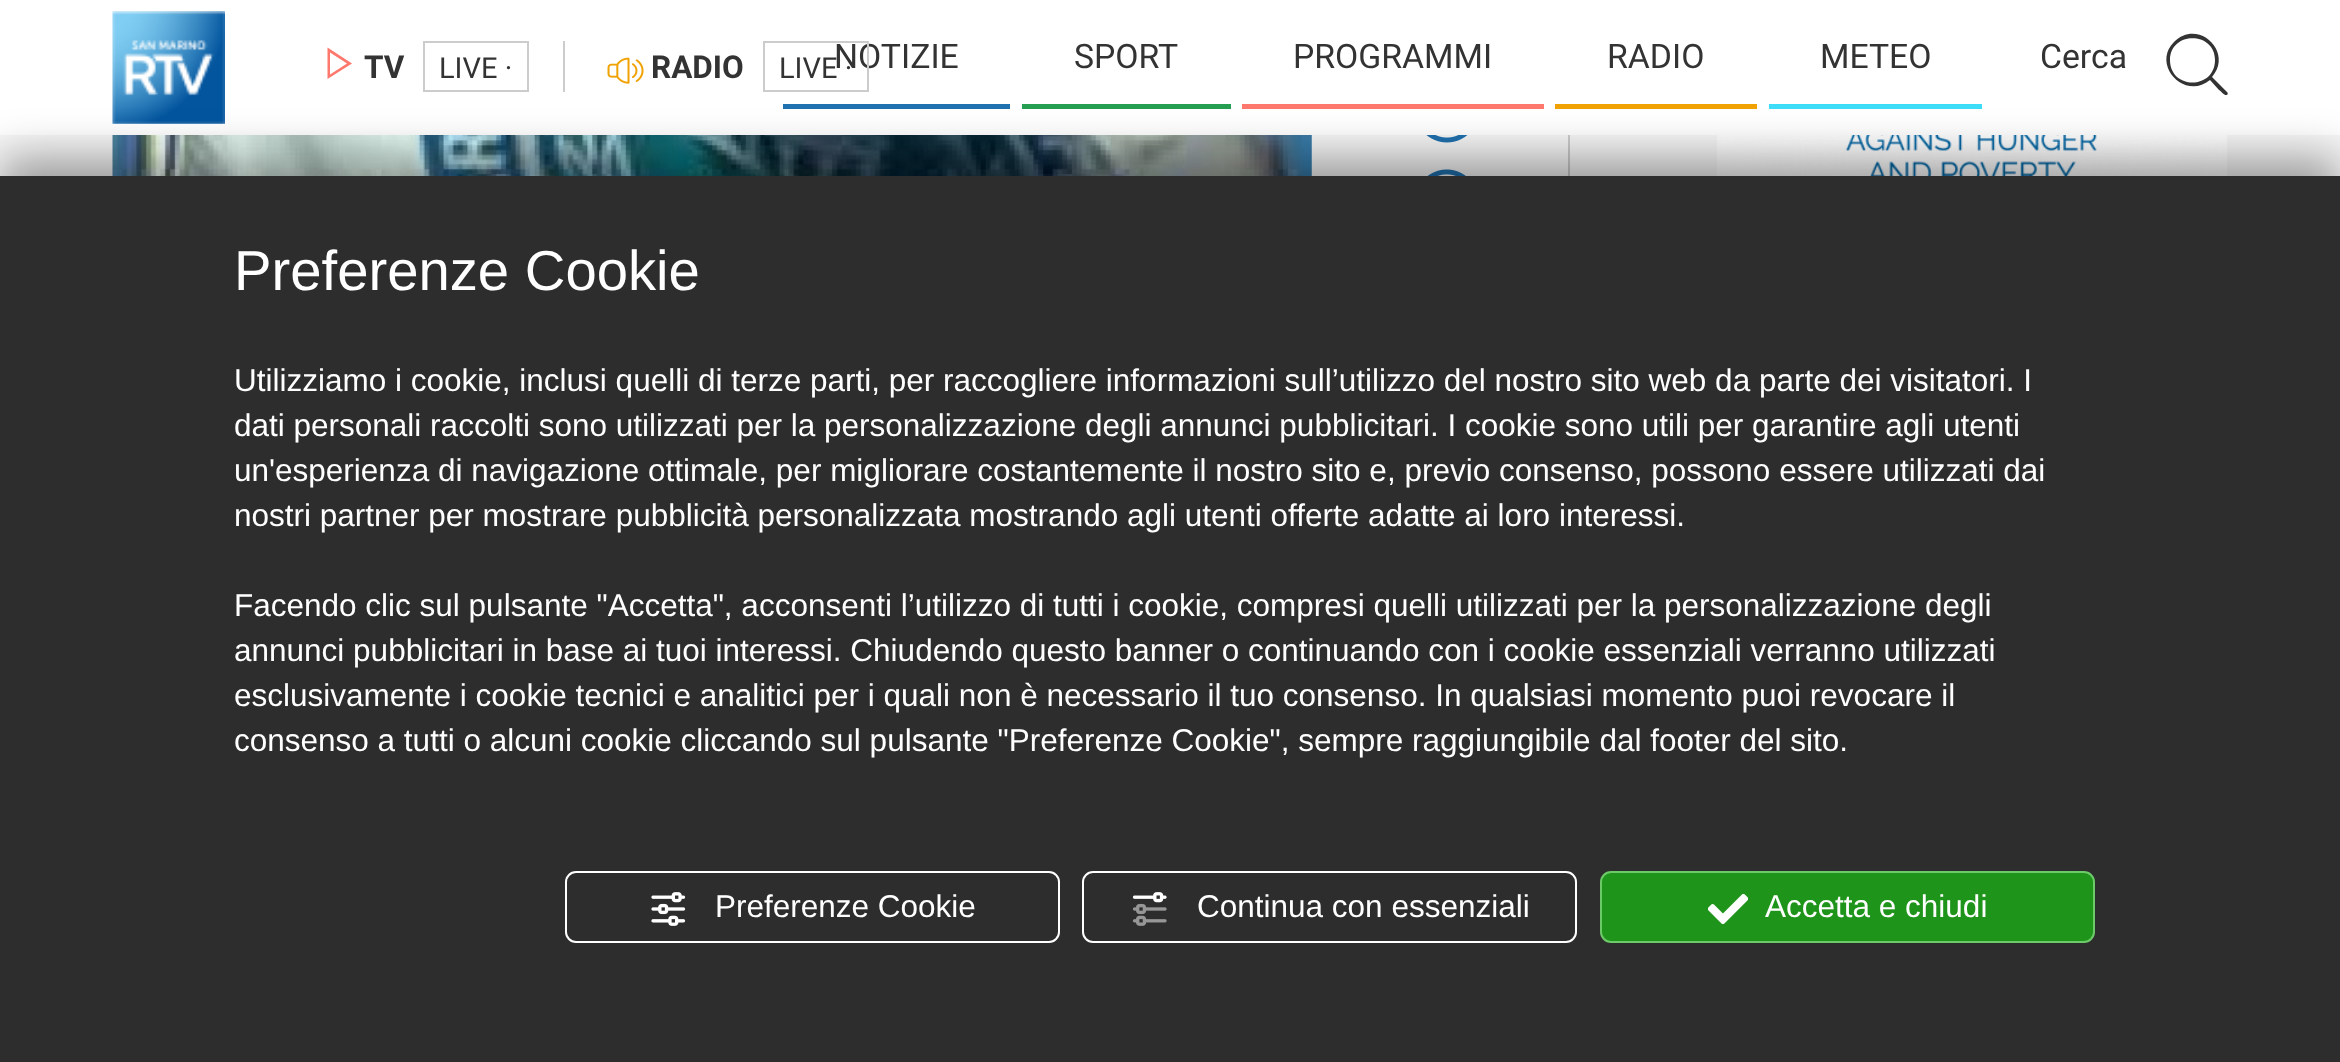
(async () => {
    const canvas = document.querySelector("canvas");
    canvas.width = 2340;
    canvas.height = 1062;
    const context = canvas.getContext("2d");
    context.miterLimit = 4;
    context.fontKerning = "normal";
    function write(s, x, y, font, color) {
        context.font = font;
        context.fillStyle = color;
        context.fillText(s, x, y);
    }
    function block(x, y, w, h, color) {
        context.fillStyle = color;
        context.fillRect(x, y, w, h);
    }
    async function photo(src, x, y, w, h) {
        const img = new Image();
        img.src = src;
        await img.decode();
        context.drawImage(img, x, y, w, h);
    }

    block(0, 0, 2340, 1062, "rgb(247, 247, 247)");
    block(0, 0, 2340, 135, "rgb(255, 255, 255)");
    await photo("media/1.png", 112, 11, 113, 113);
    block(563, 41, 2, 51, "rgb(204, 204, 204)");
    context.fillStyle = "rgb(255, 120, 109)";
    context.beginPath();
    context.moveTo(330, 52.5);
    context.lineTo(347, 63.5);
    context.lineTo(330, 74.5);
    context.closePath();
    context.moveTo(327.5, 47.5);
    context.lineTo(327.5, 79);
    context.lineTo(352, 63.5);
    context.closePath();
    context.fill();
    write("TV", 364, 78, "bold 31.5px Roboto", "rgb(51, 51, 51)");
    context.strokeStyle = "rgb(204, 204, 204)";
    context.lineWidth = 2;
    context.strokeRect(424, 42, 104, 49);
    write("LIVE ·", 439, 78, "29px Roboto", "rgb(51, 51, 51)");
    await photo("media/2.png", 607, 57, 37, 27);
    write("RADIO", 651, 78, "bold 31.5px Roboto", "rgb(51, 51, 51)");
    write("NOTIZIE", 834, 68, "33.75px Roboto", "rgb(51, 51, 51)");
    context.strokeRect(764, 42, 104, 49);
    write("LIVE ·", 779, 78, "29px Roboto", "rgb(51, 51, 51)");
    block(783, 104, 227, 5, "rgb(32, 113, 175)");
    block(1022, 104, 209, 5, "rgb(38, 158, 81)");
    write("SPORT", 1074, 68, "33.75px Roboto", "rgb(51, 51, 51)");
    block(1242, 104, 302, 5, "rgb(255, 120, 109)");
    write("PROGRAMMI", 1293, 68, "33.75px Roboto", "rgb(51, 51, 51)");
    block(1555, 104, 202, 5, "rgb(240, 162, 2)");
    write("RADIO", 1607, 68, "33.75px Roboto", "rgb(51, 51, 51)");
    block(1769, 104, 213, 5, "rgb(61, 221, 250)");
    write("METEO", 1820, 68, "33.75px Roboto", "rgb(51, 51, 51)");
    write("Cerca", 2040, 68, "33.75px Roboto", "rgb(51, 51, 51)");
    context.beginPath();
    context.moveTo(2227, 92);
    context.lineTo(2212, 77);
    context.bezierCurveTo(2234, 52, 2198, 18, 2174, 42);
    context.bezierCurveTo(2151, 65, 2185, 101, 2210, 80);
    context.lineTo(2219, 90);
    context.bezierCurveTo(2220, 90, 2224, 96, 2227, 95);
    context.bezierCurveTo(2228, 94, 2228, 93, 2227, 92);
    context.closePath();
    context.moveTo(2170, 60);
    context.bezierCurveTo(2170, 31, 2215, 31, 2215, 60);
    context.bezierCurveTo(2215, 90, 2170, 90, 2170, 60);
    context.closePath();
    context.fill();
    block(1568, 135, 2, 41, "rgb(204, 204, 204)");
    await photo("media/3.png", 112, 135, 1200, 41);
    await photo("media/4.png", 1426, 135, 42, 8);
    await photo("media/5.png", 1427, 169, 39, 7);
    await photo("media/6.png", 1717, 135, 510, 41);
    context.fillStyle = "rgba(0, 0, 0, 0.38)";
    context.filter = "blur(22.5px)";
    context.beginPath();
    context.rect(0, 158, 2340, 886);
    context.fill();
    context.filter = "none";
    block(0, 176, 2340, 886, "rgb(45, 45, 45)");
    write("Preferenze Cookie", 234, 290, "56.25px Liberation Sans", "rgb(255, 255, 255)");
    write("Utilizziamo i cookie, inclusi quelli di terze parti, per raccogliere informazioni sull’utilizzo del nostro sito web da parte dei visitatori. I", 234, 391, "31.5px Liberation Sans", "rgb(255, 255, 255)");
    write("dati personali raccolti sono utilizzati per la personalizzazione degli annunci pubblicitari. I cookie sono utili per garantire agli utenti", 234, 436, "31.5px Liberation Sans", "rgb(255, 255, 255)");
    write("un'esperienza di navigazione ottimale, per migliorare costantemente il nostro sito e, previo consenso, possono essere utilizzati dai", 234, 481, "31.5px Liberation Sans", "rgb(255, 255, 255)");
    write("nostri partner per mostrare pubblicità personalizzata mostrando agli utenti offerte adatte ai loro interessi.", 234, 526, "31.5px Liberation Sans", "rgb(255, 255, 255)");
    write("Facendo clic sul pulsante \"Accetta\", acconsenti l’utilizzo di tutti i cookie, compresi quelli utilizzati per la personalizzazione degli", 234, 616, "31.5px Liberation Sans", "rgb(255, 255, 255)");
    write("annunci pubblicitari in base ai tuoi interessi. Chiudendo questo banner o continuando con i cookie essenziali verranno utilizzati", 234, 661, "31.5px Liberation Sans", "rgb(255, 255, 255)");
    write("esclusivamente i cookie tecnici e analitici per i quali non è necessario il tuo consenso. In qualsiasi momento puoi revocare il", 234, 706, "31.5px Liberation Sans", "rgb(255, 255, 255)");
    write("consenso a tutti o alcuni cookie cliccando sul pulsante \"Preferenze Cookie\", sempre raggiungibile dal footer del sito.", 234, 751, "31.5px Liberation Sans", "rgb(255, 255, 255)");
    context.beginPath();
    context.roundRect(566, 872, 493, 70, 10);
    context.strokeStyle = "rgb(255, 255, 255)";
    context.stroke();
    await photo("media/7.png", 651, 892, 35, 34);
    write("Preferenze Cookie", 715, 917, "31.5px Liberation Sans", "rgb(255, 255, 255)");
    context.beginPath();
    context.roundRect(1083, 872, 493, 70, 10);
    context.stroke();
    await photo("media/8.png", 1132, 892, 35, 34);
    write("Continua con essenziali", 1197, 917, "31.5px Liberation Sans", "rgb(255, 255, 255)");
    context.fillStyle = "rgb(30, 148, 26)";
    context.beginPath();
    context.roundRect(1601, 872, 493, 70, 10);
    context.fill();
    context.strokeStyle = "rgb(108, 202, 105)";
    context.stroke();
    await photo("media/9.png", 1708, 893, 40, 32);
    write("Accetta e chiudi", 1765, 917, "31.5px Liberation Sans", "rgb(255, 255, 255)");
})();
